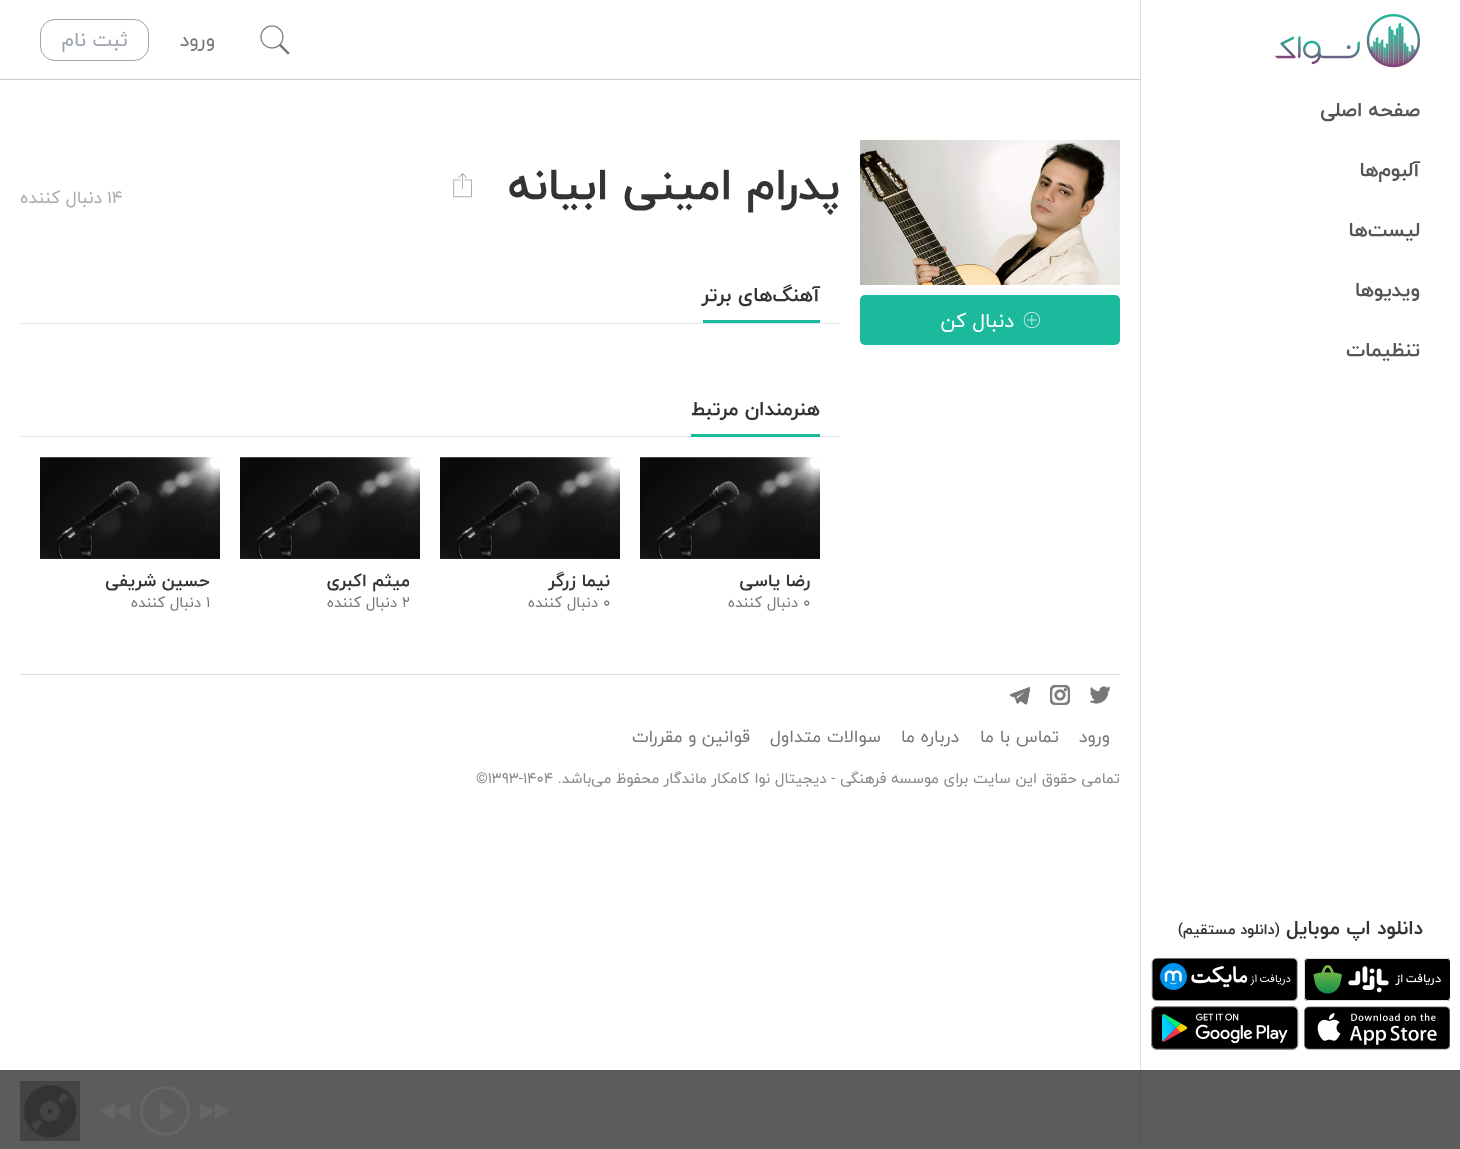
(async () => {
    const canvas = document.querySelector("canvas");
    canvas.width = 1460;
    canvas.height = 1149;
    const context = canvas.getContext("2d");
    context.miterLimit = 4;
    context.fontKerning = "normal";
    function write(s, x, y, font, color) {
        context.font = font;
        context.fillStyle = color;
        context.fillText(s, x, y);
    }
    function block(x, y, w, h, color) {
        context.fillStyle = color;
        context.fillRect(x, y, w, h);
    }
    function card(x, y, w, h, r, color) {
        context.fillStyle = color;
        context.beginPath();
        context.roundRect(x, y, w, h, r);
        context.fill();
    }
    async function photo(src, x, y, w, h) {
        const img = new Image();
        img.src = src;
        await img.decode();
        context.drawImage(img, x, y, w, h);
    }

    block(0, 0, 1460, 1149, "rgb(255, 255, 255)");
    block(0, 1071, 1460, 78, "rgb(92, 92, 92)");
    block(1140, 0, 1, 1070, "rgb(221, 221, 221)");
    block(1140, 1070, 1, 79, "rgb(85, 85, 85)");
    await photo("media/1.png", 1274, 14, 147, 54);
    context.direction = "rtl";
    write("صفحه اصلی", 1420, 116, "bold 20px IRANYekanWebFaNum", "rgb(85, 85, 85)");
    write("آلبوم‌ها", 1420, 176, "bold 20px IRANYekanWebFaNum", "rgb(85, 85, 85)");
    write("لیست‌ها", 1420, 236, "bold 20px IRANYekanWebFaNum", "rgb(85, 85, 85)");
    write("ویدیوها", 1420, 296, "bold 20px IRANYekanWebFaNum", "rgb(85, 85, 85)");
    write("تنظیمات", 1420, 356, "bold 20px IRANYekanWebFaNum", "rgb(85, 85, 85)");
    write("دانلود اپ موبایل", 1423, 934, "bold 20px IRANYekanWebFaNum", "rgb(51, 51, 51)");
    write("(دانلود مستقیم)", 1280, 934, "bold 15px IRANYekanWebFaNum", "rgb(51, 51, 51)");
    await photo("media/2.png", 1304, 958, 146, 43);
    await photo("media/3.png", 1151, 958, 147, 43);
    await photo("media/4.png", 1304, 1006, 146, 44);
    await photo("media/5.png", 1151, 1006, 148, 44);
    block(0, 79, 1140, 1, "rgb(204, 204, 204)");
    await photo("media/6.png", 260, 25, 30, 30);
    write("ورود", 215, 46, "20px IRANYekanWebFaNum", "rgb(119, 119, 119)");
    context.beginPath();
    context.roundRect(40.5, 19.5, 108, 41, 14.5);
    context.strokeStyle = "rgb(156, 163, 175)";
    context.stroke();
    write("ثبت نام", 128, 46, "20px IRANYekanWebFaNum", "rgb(156, 163, 175)");
    await photo("media/7.png", 860, 140, 260, 145);
    card(860, 295, 260, 50, 5, "rgb(27, 186, 157)");
    await photo("media/8.png", 1023, 311, 17, 18);
    write("دنبال کن", 1014, 327, "20px IRANYekanWebFaNum", "rgb(255, 255, 255)");
    write("پدرام امینی ابیانه", 840, 199, "bold 45px IRANYekanWebFaNum", "rgb(51, 51, 51)");
    await photo("media/9.png", 453, 173, 19, 25);
    context.direction = "ltr";
    write("14", 107, 203, "17.5px IRANYekanWebFaNum", "rgb(170, 170, 170)");
    context.direction = "rtl";
    write("دنبال کننده", 102, 203, "17.5px IRANYekanWebFaNum", "rgb(170, 170, 170)");
    block(20, 323, 820, 1, "rgb(229, 231, 235)");
    block(703, 320, 117, 3, "rgb(27, 186, 157)");
    write("آهنگ‌های برتر", 820, 301, "bold 20px IRANYekanWebFaNum", "rgb(51, 51, 51)");
    block(20, 436, 820, 1, "rgb(229, 231, 235)");
    block(691, 434, 129, 3, "rgb(27, 186, 157)");
    write("هنرمندان مرتبط", 820, 415, "bold 20px IRANYekanWebFaNum", "rgb(51, 51, 51)");
    await photo("media/10.png", 640, 457, 180, 102);
    await photo("media/11.png", 640, 457, 180, 102);
    write("رضا یاسی", 810, 586, "bold 17.5px IRANYekanWebFaNum", "rgb(51, 51, 51)");
    context.direction = "ltr";
    write("0", 803, 607, "15px IRANYekanWebFaNum", "rgb(119, 119, 119)");
    context.direction = "rtl";
    write("دنبال کننده", 798, 607, "15px IRANYekanWebFaNum", "rgb(119, 119, 119)");
    await photo("media/12.png", 440, 457, 180, 102);
    await photo("media/13.png", 440, 457, 180, 102);
    write("نیما زرگر", 610, 586, "bold 17.5px IRANYekanWebFaNum", "rgb(51, 51, 51)");
    context.direction = "ltr";
    write("0", 603, 607, "15px IRANYekanWebFaNum", "rgb(119, 119, 119)");
    context.direction = "rtl";
    write("دنبال کننده", 598, 607, "15px IRANYekanWebFaNum", "rgb(119, 119, 119)");
    await photo("media/12.png", 240, 457, 180, 102);
    await photo("media/13.png", 240, 457, 180, 102);
    write("میثم اکبری", 410, 586, "bold 17.5px IRANYekanWebFaNum", "rgb(51, 51, 51)");
    context.direction = "ltr";
    write("2", 402, 607, "15px IRANYekanWebFaNum", "rgb(119, 119, 119)");
    context.direction = "rtl";
    write("دنبال کننده", 397, 607, "15px IRANYekanWebFaNum", "rgb(119, 119, 119)");
    await photo("media/12.png", 40, 457, 180, 102);
    await photo("media/13.png", 40, 457, 180, 102);
    write("حسین شریفی", 210, 586, "bold 17.5px IRANYekanWebFaNum", "rgb(51, 51, 51)");
    context.direction = "ltr";
    write("1", 206, 607, "15px IRANYekanWebFaNum", "rgb(119, 119, 119)");
    context.direction = "rtl";
    write("دنبال کننده", 201, 607, "15px IRANYekanWebFaNum", "rgb(119, 119, 119)");
    block(20, 674, 1100, 1, "rgb(219, 219, 219)");
    await photo("media/14.png", 1090, 686, 20, 18);
    await photo("media/15.png", 1050, 685, 20, 20);
    await photo("media/16.png", 1010, 687, 20, 18);
    write("ورود", 1110, 742, "17.5px IRANYekanWebFaNum", "rgb(119, 119, 119)");
    write("تماس با ما", 1059, 742, "17.5px IRANYekanWebFaNum", "rgb(119, 119, 119)");
    write("درباره ما", 959, 742, "17.5px IRANYekanWebFaNum", "rgb(119, 119, 119)");
    write("سوالات متداول", 881, 742, "17.5px IRANYekanWebFaNum", "rgb(119, 119, 119)");
    write("قوانین و مقررات", 750, 742, "17.5px IRANYekanWebFaNum", "rgb(119, 119, 119)");
    write("تمامی حقوق این سایت برای موسسه فرهنگی - دیجیتال نوا کامکار ماندگار محفوظ می‌باشد.", 1120, 783, "15px IRANYekanWebFaNum", "rgb(136, 136, 136)");
    context.direction = "ltr";
    write("1404", 523, 783, "15px IRANYekanWebFaNum", "rgb(136, 136, 136)");
    write("©۱۳۹۳-", 476, 783, "15px IRANYekanWebFaNum", "rgb(136, 136, 136)");
    block(0, 1070, 1460, 1, "rgb(85, 85, 85)");
    context.fillStyle = "rgb(102, 102, 102)";
    context.beginPath();
    context.moveTo(215, 1103);
    context.lineTo(230, 1111);
    context.lineTo(215, 1119.5);
    context.lineTo(215, 1111.5);
    context.lineTo(200, 1119.5);
    context.lineTo(200, 1103);
    context.lineTo(215, 1111);
    context.closePath();
    context.fill();
    context.beginPath();
    context.arc(165, 1111, 23.5, 0, Math.PI * 2);
    context.strokeStyle = "rgb(102, 102, 102)";
    context.lineWidth = 3;
    context.stroke();
    context.beginPath();
    context.moveTo(160, 1121);
    context.lineTo(175.5, 1111.5);
    context.lineTo(160, 1101.5);
    context.closePath();
    context.fill();
    context.beginPath();
    context.moveTo(115, 1103);
    context.lineTo(115, 1111);
    context.lineTo(130, 1103);
    context.lineTo(130, 1119.5);
    context.lineTo(115, 1111.5);
    context.lineTo(115, 1119.5);
    context.lineTo(100, 1111);
    context.closePath();
    context.fill();
    block(20, 1081, 60, 60, "rgb(68, 68, 68)");
    await photo("media/17.png", 23, 1085, 54, 53);
})();
